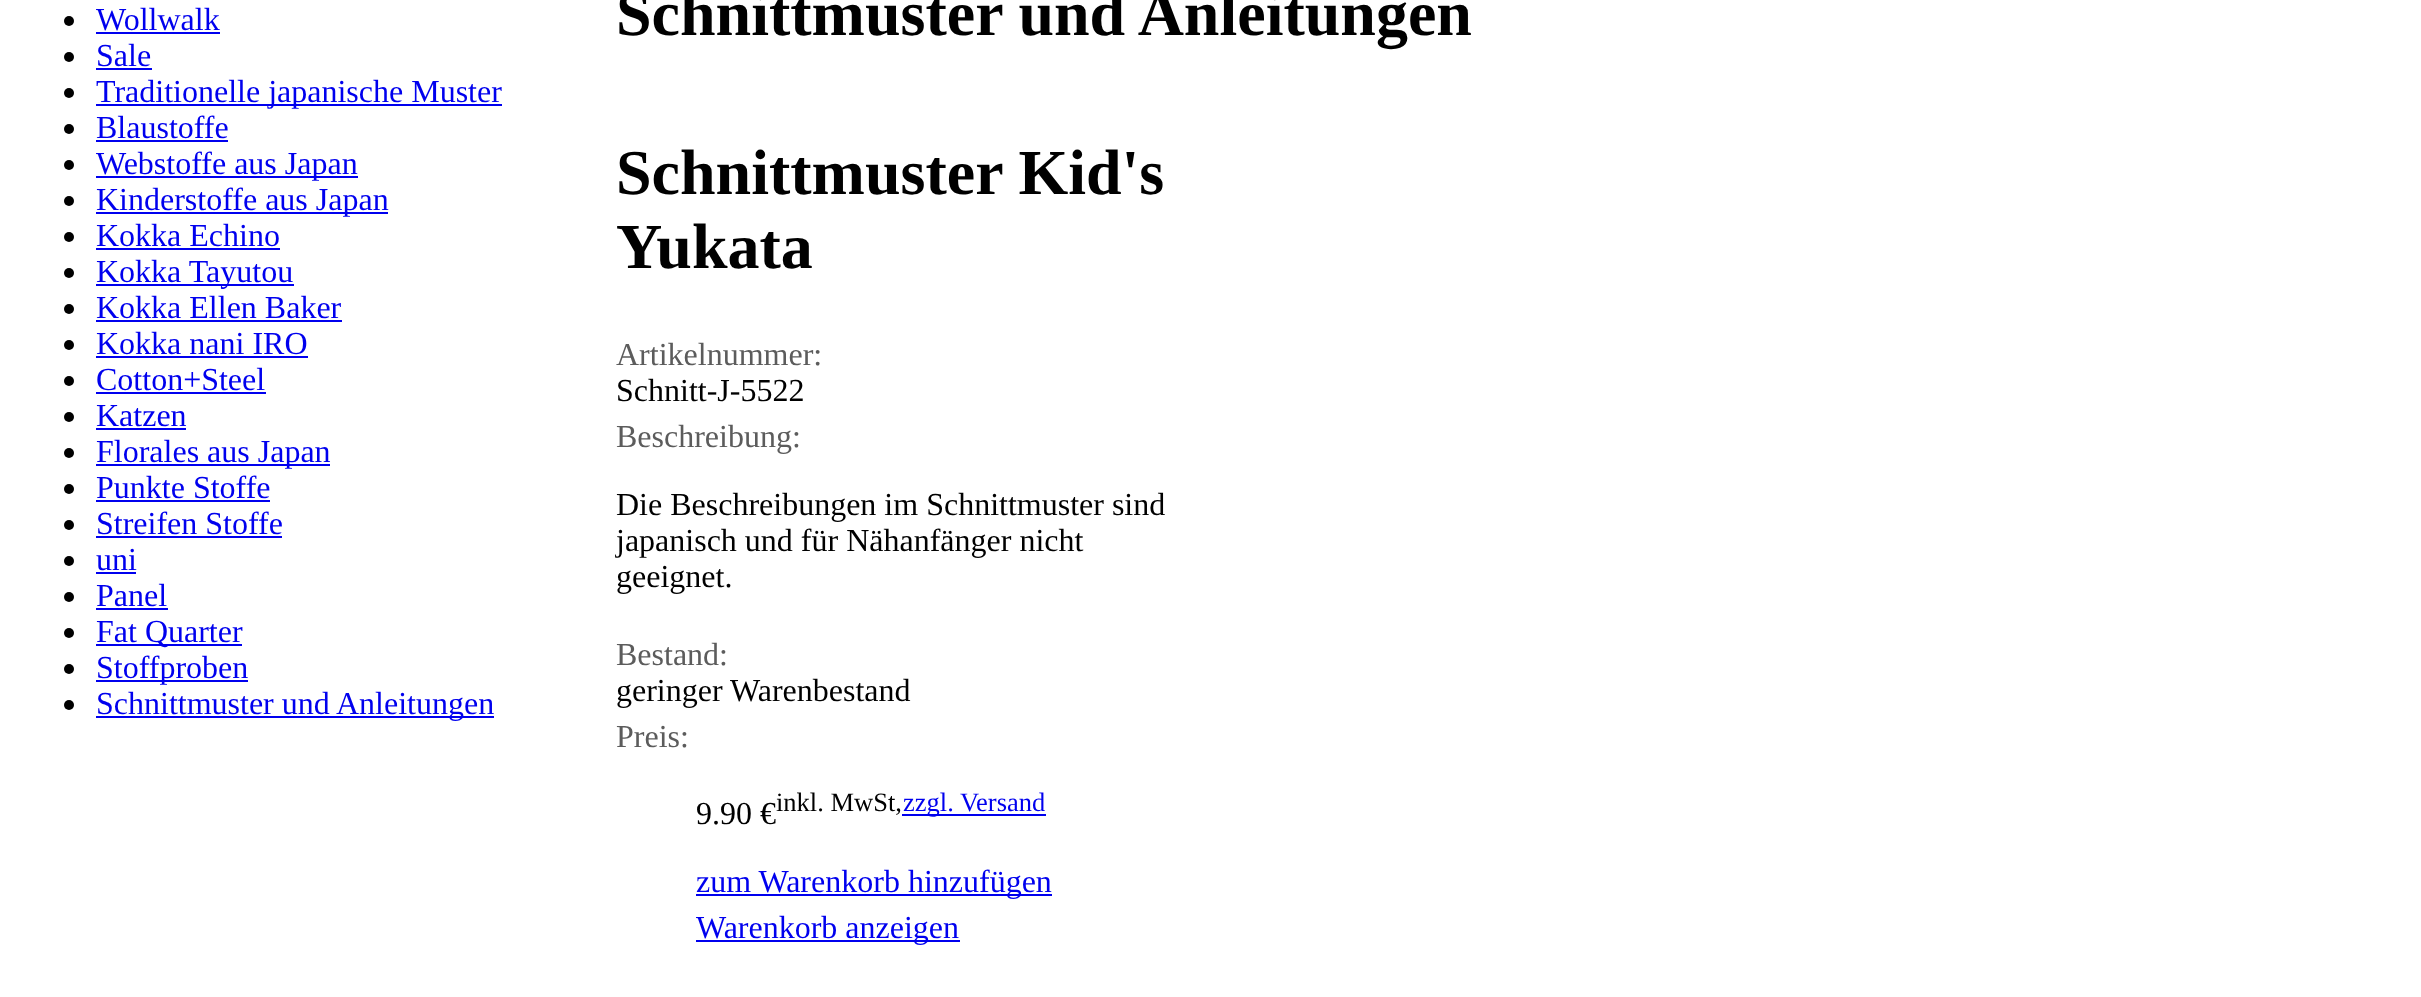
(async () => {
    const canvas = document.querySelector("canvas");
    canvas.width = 2421;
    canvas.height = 997;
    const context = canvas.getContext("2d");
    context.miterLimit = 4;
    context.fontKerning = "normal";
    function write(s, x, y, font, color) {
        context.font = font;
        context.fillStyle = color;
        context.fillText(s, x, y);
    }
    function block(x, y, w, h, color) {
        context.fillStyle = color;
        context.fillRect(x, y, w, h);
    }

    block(0, 0, 2421, 997, "rgb(255, 255, 255)");
    context.fillStyle = "rgb(0, 0, 0)";
    context.beginPath();
    context.arc(69, 21, 5, 0, Math.PI * 2);
    context.fill();
    write("Wollwalk", 96, 30, "32px Liberation Serif", "rgb(0, 0, 238)");
    block(96, 32, 124, 2, "rgb(0, 0, 238)");
    context.fillStyle = "rgb(0, 0, 0)";
    context.beginPath();
    context.arc(69, 57, 5, 0, Math.PI * 2);
    context.fill();
    write("Sale", 96, 66, "32px Liberation Serif", "rgb(0, 0, 238)");
    block(96, 68, 56, 2, "rgb(0, 0, 238)");
    context.fillStyle = "rgb(0, 0, 0)";
    context.beginPath();
    context.arc(69, 93, 5, 0, Math.PI * 2);
    context.fill();
    block(96, 104, 406, 2, "rgb(0, 0, 238)");
    write("Traditionelle japanische Muster", 96, 102, "32px Liberation Serif", "rgb(0, 0, 238)");
    context.fillStyle = "rgb(0, 0, 0)";
    context.beginPath();
    context.arc(69, 129, 5, 0, Math.PI * 2);
    context.fill();
    write("Blaustoffe", 96, 138, "32px Liberation Serif", "rgb(0, 0, 238)");
    block(96, 140, 132, 2, "rgb(0, 0, 238)");
    context.fillStyle = "rgb(0, 0, 0)";
    context.beginPath();
    context.arc(69, 165, 5, 0, Math.PI * 2);
    context.fill();
    block(96, 176, 262, 2, "rgb(0, 0, 238)");
    write("Webstoffe aus Japan", 96, 174, "32px Liberation Serif", "rgb(0, 0, 238)");
    context.fillStyle = "rgb(0, 0, 0)";
    context.beginPath();
    context.arc(69, 201, 5, 0, Math.PI * 2);
    context.fill();
    block(96, 212, 292, 2, "rgb(0, 0, 238)");
    write("Kinderstoffe aus Japan", 96, 210, "32px Liberation Serif", "rgb(0, 0, 238)");
    context.fillStyle = "rgb(0, 0, 0)";
    context.beginPath();
    context.arc(69, 237, 5, 0, Math.PI * 2);
    context.fill();
    write("Kokka Echino", 96, 246, "32px Liberation Serif", "rgb(0, 0, 238)");
    block(96, 248, 184, 2, "rgb(0, 0, 238)");
    context.fillStyle = "rgb(0, 0, 0)";
    context.beginPath();
    context.arc(69, 273, 5, 0, Math.PI * 2);
    context.fill();
    block(96, 284, 198, 2, "rgb(0, 0, 238)");
    write("Kokka Tayutou", 96, 282, "32px Liberation Serif", "rgb(0, 0, 238)");
    context.fillStyle = "rgb(0, 0, 0)";
    context.beginPath();
    context.arc(69, 309, 5, 0, Math.PI * 2);
    context.fill();
    write("Kokka Ellen Baker", 96, 318, "32px Liberation Serif", "rgb(0, 0, 238)");
    block(96, 320, 246, 2, "rgb(0, 0, 238)");
    context.fillStyle = "rgb(0, 0, 0)";
    context.beginPath();
    context.arc(69, 345, 5, 0, Math.PI * 2);
    context.fill();
    write("Kokka nani IRO", 96, 354, "32px Liberation Serif", "rgb(0, 0, 238)");
    block(96, 356, 212, 2, "rgb(0, 0, 238)");
    context.fillStyle = "rgb(0, 0, 0)";
    context.beginPath();
    context.arc(69, 381, 5, 0, Math.PI * 2);
    context.fill();
    write("Cotton+Steel", 96, 390, "32px Liberation Serif", "rgb(0, 0, 238)");
    block(96, 392, 170, 2, "rgb(0, 0, 238)");
    context.fillStyle = "rgb(0, 0, 0)";
    context.beginPath();
    context.arc(69, 417, 5, 0, Math.PI * 2);
    context.fill();
    write("Katzen", 96, 426, "32px Liberation Serif", "rgb(0, 0, 238)");
    block(96, 428, 90, 2, "rgb(0, 0, 238)");
    context.fillStyle = "rgb(0, 0, 0)";
    context.beginPath();
    context.arc(69, 453, 5, 0, Math.PI * 2);
    context.fill();
    block(96, 464, 234, 2, "rgb(0, 0, 238)");
    write("Florales aus Japan", 96, 462, "32px Liberation Serif", "rgb(0, 0, 238)");
    context.fillStyle = "rgb(0, 0, 0)";
    context.beginPath();
    context.arc(69, 489, 5, 0, Math.PI * 2);
    context.fill();
    write("Punkte Stoffe", 96, 498, "32px Liberation Serif", "rgb(0, 0, 238)");
    block(96, 500, 174, 2, "rgb(0, 0, 238)");
    context.fillStyle = "rgb(0, 0, 0)";
    context.beginPath();
    context.arc(69, 525, 5, 0, Math.PI * 2);
    context.fill();
    write("Streifen Stoffe", 96, 534, "32px Liberation Serif", "rgb(0, 0, 238)");
    block(96, 536, 186, 2, "rgb(0, 0, 238)");
    context.fillStyle = "rgb(0, 0, 0)";
    context.beginPath();
    context.arc(69, 561, 5, 0, Math.PI * 2);
    context.fill();
    write("uni", 96, 570, "32px Liberation Serif", "rgb(0, 0, 238)");
    block(96, 572, 40, 2, "rgb(0, 0, 238)");
    context.fillStyle = "rgb(0, 0, 0)";
    context.beginPath();
    context.arc(69, 597, 5, 0, Math.PI * 2);
    context.fill();
    write("Panel", 96, 606, "32px Liberation Serif", "rgb(0, 0, 238)");
    block(96, 608, 72, 2, "rgb(0, 0, 238)");
    context.fillStyle = "rgb(0, 0, 0)";
    context.beginPath();
    context.arc(69, 633, 5, 0, Math.PI * 2);
    context.fill();
    block(96, 644, 146, 2, "rgb(0, 0, 238)");
    write("Fat Quarter", 96, 642, "32px Liberation Serif", "rgb(0, 0, 238)");
    context.fillStyle = "rgb(0, 0, 0)";
    context.beginPath();
    context.arc(69, 669, 5, 0, Math.PI * 2);
    context.fill();
    block(96, 680, 152, 2, "rgb(0, 0, 238)");
    write("Stoffproben", 96, 678, "32px Liberation Serif", "rgb(0, 0, 238)");
    context.fillStyle = "rgb(0, 0, 0)";
    context.beginPath();
    context.arc(69, 705, 5, 0, Math.PI * 2);
    context.fill();
    block(96, 716, 398, 2, "rgb(0, 0, 238)");
    write("Schnittmuster und Anleitungen", 96, 714, "32px Liberation Serif", "rgb(0, 0, 238)");
    write("Schnittmuster und Anleitungen", 616, 35, "bold 64px Liberation Serif", "rgb(0, 0, 0)");
    write("Schnittmuster Kid's", 616, 194, "bold 64px Liberation Serif", "rgb(0, 0, 0)");
    write("Yukata", 616, 268, "bold 64px Liberation Serif", "rgb(0, 0, 0)");
    write("Artikelnummer:", 616, 365, "32px Liberation Serif", "rgb(92, 92, 92)");
    write("Schnitt-J-5522", 616, 401, "32px Liberation Serif", "rgb(0, 0, 0)");
    write("Beschreibung:", 616, 447, "32px Liberation Serif", "rgb(92, 92, 92)");
    write("Die Beschreibungen im Schnittmuster sind", 616, 515, "32px Liberation Serif", "rgb(0, 0, 0)");
    write("japanisch und für Nähanfänger nicht", 616, 551, "32px Liberation Serif", "rgb(0, 0, 0)");
    write("geeignet.", 616, 587, "32px Liberation Serif", "rgb(0, 0, 0)");
    write("Bestand:", 616, 665, "32px Liberation Serif", "rgb(92, 92, 92)");
    write("geringer Warenbestand", 616, 701, "32px Liberation Serif", "rgb(0, 0, 0)");
    write("Preis:", 616, 747, "32px Liberation Serif", "rgb(92, 92, 92)");
    write("9.90 €", 696, 824, "32px Liberation Serif", "rgb(0, 0, 0)");
    write("inkl. MwSt,", 776, 811, "26.5px Liberation Serif", "rgb(0, 0, 0)");
    block(902, 814, 144, 2, "rgb(0, 0, 238)");
    write("zzgl. Versand", 903, 811, "26.5px Liberation Serif", "rgb(0, 0, 238)");
    block(696, 894, 356, 2, "rgb(0, 0, 238)");
    write("zum Warenkorb hinzufügen", 696, 892, "32px Liberation Serif", "rgb(0, 0, 238)");
    block(696, 940, 264, 2, "rgb(0, 0, 238)");
    write("Warenkorb anzeigen", 696, 938, "32px Liberation Serif", "rgb(0, 0, 238)");
})();
